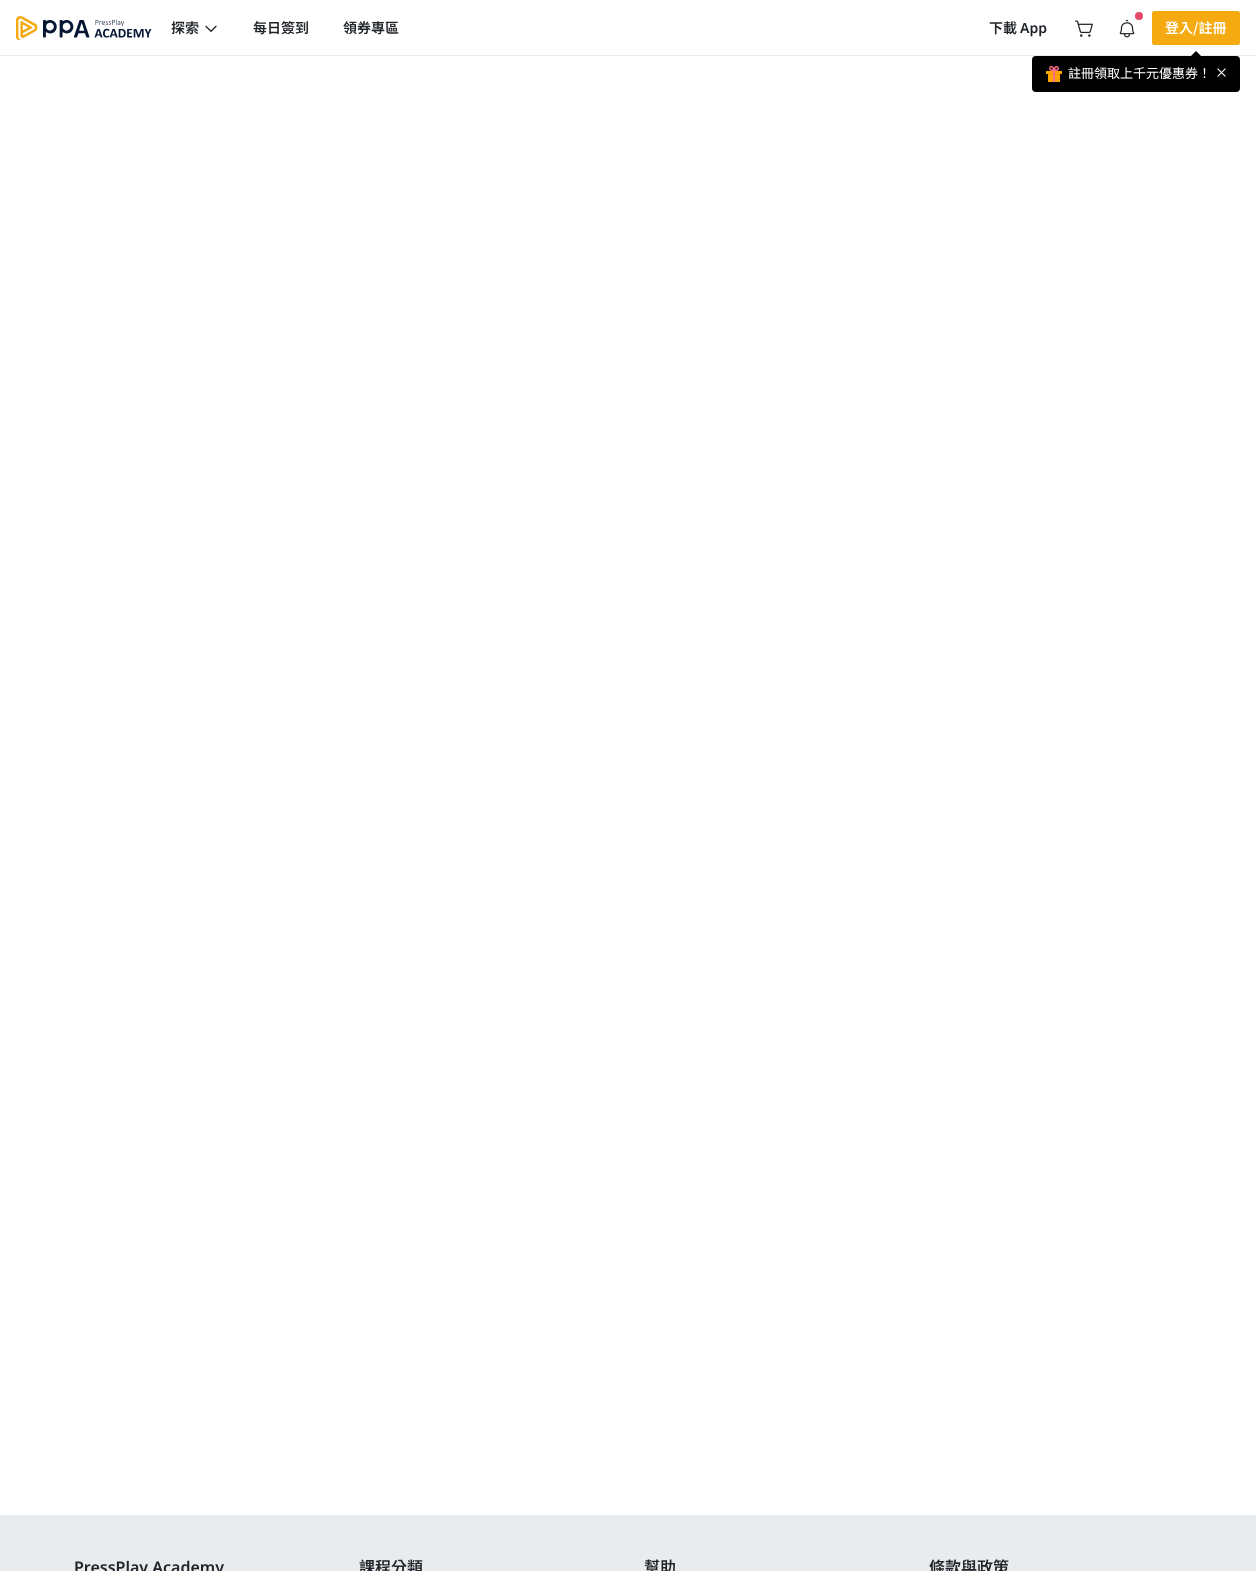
(async () => {
    const canvas = document.querySelector("canvas");
    canvas.width = 1256;
    canvas.height = 1571;
    const context = canvas.getContext("2d");
    context.miterLimit = 4;
    context.fontKerning = "normal";
    function write(s, x, y, font, color) {
        context.font = font;
        context.fillStyle = color;
        context.fillText(s, x, y);
    }
    function block(x, y, w, h, color) {
        context.fillStyle = color;
        context.fillRect(x, y, w, h);
    }
    function card(x, y, w, h, r, color) {
        context.fillStyle = color;
        context.beginPath();
        context.roundRect(x, y, w, h, r);
        context.fill();
    }
    async function photo(src, x, y, w, h) {
        const img = new Image();
        img.src = src;
        await img.decode();
        context.drawImage(img, x, y, w, h);
    }

    block(0, 0, 1256, 1571, "rgb(255, 255, 255)");
    block(0, 55, 1256, 1, "rgb(233, 236, 239)");
    await photo("media/1.png", 16, 16, 136, 24);
    write("探索", 171, 33, "600 14px Noto Sans TC", "rgb(33, 37, 41)");
    await photo("media/2.png", 205, 25, 12, 7);
    write("每日簽到", 253, 33, "600 14px Noto Sans TC", "rgb(33, 37, 41)");
    write("領券專區", 343, 33, "600 14px Noto Sans TC", "rgb(33, 37, 41)");
    write("下載", 989, 33, "600 14px Noto Sans TC", "rgb(33, 37, 41)");
    write("App", 1020, 33, "600 14px Noto Sans", "rgb(33, 37, 41)");
    await photo("media/3.png", 1075, 20, 18, 17);
    context.fillStyle = "rgb(232, 73, 103)";
    context.beginPath();
    context.arc(1139, 16, 4, 0, Math.PI * 2);
    context.fill();
    await photo("media/4.png", 1119, 19, 16, 19);
    context.fillStyle = "rgb(244, 170, 16)";
    context.beginPath();
    context.roundRect(1152.5, 11.5, 87, 33, 1.5);
    context.fill();
    context.strokeStyle = "rgb(244, 170, 16)";
    context.stroke();
    write("登入/註冊", 1165, 33, "600 14px Noto Sans TC", "rgb(255, 255, 255)");
    context.fillStyle = "rgb(0, 0, 0)";
    context.beginPath();
    context.moveTo(1201, 56);
    context.lineTo(1191, 56);
    context.lineTo(1196, 51);
    context.closePath();
    context.fill();
    card(1032, 56, 208, 36, 4, "rgb(0, 0, 0)");
    await photo("media/5.png", 1046, 66, 16, 16);
    write("註冊領取上千元優惠券！", 1068, 78, "13px Noto Sans TC", "rgb(255, 255, 255)");
    await photo("media/6.png", 1217, 68, 9, 9);
    block(0, 1515, 1256, 56, "rgb(233, 236, 239)");
    write("PressPlay Academy", 74, 1573, "600 16px Noto Sans", "rgb(33, 37, 41)");
    write("課程分類", 359, 1573, "600 16px Noto Sans TC", "rgb(33, 37, 41)");
    write("幫助", 644, 1573, "600 16px Noto Sans TC", "rgb(33, 37, 41)");
    write("條款與政策", 929, 1573, "600 16px Noto Sans TC", "rgb(33, 37, 41)");
})();
